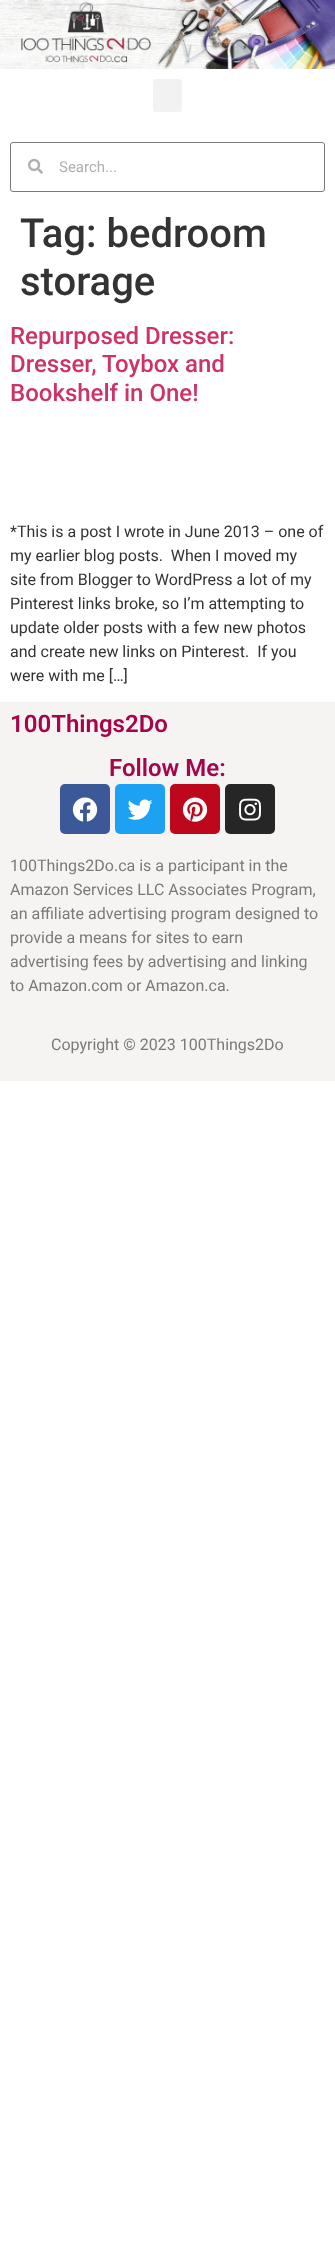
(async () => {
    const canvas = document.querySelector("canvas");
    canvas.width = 335;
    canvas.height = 2249;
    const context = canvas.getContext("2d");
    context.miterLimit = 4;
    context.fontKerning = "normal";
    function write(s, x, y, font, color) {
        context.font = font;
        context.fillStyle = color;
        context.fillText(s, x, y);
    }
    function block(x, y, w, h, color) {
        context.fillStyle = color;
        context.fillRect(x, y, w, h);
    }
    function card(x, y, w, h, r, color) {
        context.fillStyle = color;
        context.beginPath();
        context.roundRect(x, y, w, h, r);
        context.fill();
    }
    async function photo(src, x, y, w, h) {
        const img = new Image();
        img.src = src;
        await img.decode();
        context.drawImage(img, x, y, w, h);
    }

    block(0, 0, 335, 2249, "rgb(255, 255, 255)");
    await photo("media/1.png", 0, 0, 335, 69);
    card(153, 79, 29, 33, 3, "rgb(242, 242, 242)");
    context.beginPath();
    context.roundRect(10.5, 142.5, 314, 49, 2.5);
    context.strokeStyle = "rgb(122, 122, 122)";
    context.stroke();
    await photo("media/2.png", 28, 158, 15, 16);
    write("Search...", 59, 172, "15px Roboto", "rgb(175, 175, 175)");
    write("Tag: bedroom", 20, 247, "500 40px Roboto", "rgb(51, 51, 51)");
    write("storage", 20, 295, "500 40px Roboto", "rgb(51, 51, 51)");
    write("Repurposed Dresser:", 10, 344, "500 24px Roboto", "rgb(204, 51, 102)");
    write("Dresser, Toybox and", 10, 372, "500 24px Roboto", "rgb(204, 51, 102)");
    write("Bookshelf in One!", 10, 401, "500 24px Roboto", "rgb(204, 51, 102)");
    write("*This is a post I wrote in June 2013 – one of", 10, 537, "16px Roboto", "rgb(51, 51, 51)");
    write("my earlier blog posts.  When I moved my", 10, 561, "16px Roboto", "rgb(51, 51, 51)");
    write("site from Blogger to WordPress a lot of my", 10, 585, "16px Roboto", "rgb(51, 51, 51)");
    write("Pinterest links broke, so I’m attempting to", 10, 609, "16px Roboto", "rgb(51, 51, 51)");
    write("update older posts with a few new photos", 10, 633, "16px Roboto", "rgb(51, 51, 51)");
    write("and create new links on Pinterest.  If you", 10, 657, "16px Roboto", "rgb(51, 51, 51)");
    write("were with me […]", 10, 681, "16px Roboto", "rgb(51, 51, 51)");
    block(0, 702, 335, 379, "rgb(246, 243, 243)");
    write("100Things2Do", 10, 732, "600 24px Roboto", "rgb(165, 5, 73)");
    write("Follow Me:", 109, 776, "600 24px Roboto", "rgb(165, 5, 73)");
    card(60, 784, 50, 50, 5, "rgb(59, 89, 152)");
    await photo("media/3.png", 72, 797, 26, 25);
    card(115, 784, 50, 50, 5, "rgb(29, 161, 242)");
    await photo("media/4.png", 127, 799, 26, 21);
    card(170, 784, 50, 50, 5, "rgb(189, 8, 28)");
    await photo("media/5.png", 182, 797, 26, 25);
    card(225, 784, 50, 50, 5, "rgb(38, 38, 38)");
    await photo("media/6.png", 239, 798, 22, 23);
    write("100Things2Do.ca is a participant in the", 10, 871, "16px Roboto", "rgb(122, 122, 122)");
    write("Amazon Services LLC Associates Program,", 10, 895, "16px Roboto", "rgb(122, 122, 122)");
    write("an affiliate advertising program designed to", 10, 919, "16px Roboto", "rgb(122, 122, 122)");
    write("provide a means for sites to earn", 10, 943, "16px Roboto", "rgb(122, 122, 122)");
    write("advertising fees by advertising and linking", 10, 967, "16px Roboto", "rgb(122, 122, 122)");
    write("to Amazon.com or Amazon.ca.", 10, 991, "16px Roboto", "rgb(122, 122, 122)");
    write("Copyright © 2023 100Things2Do", 51, 1050, "16px Roboto", "rgb(122, 122, 122)");
})();
